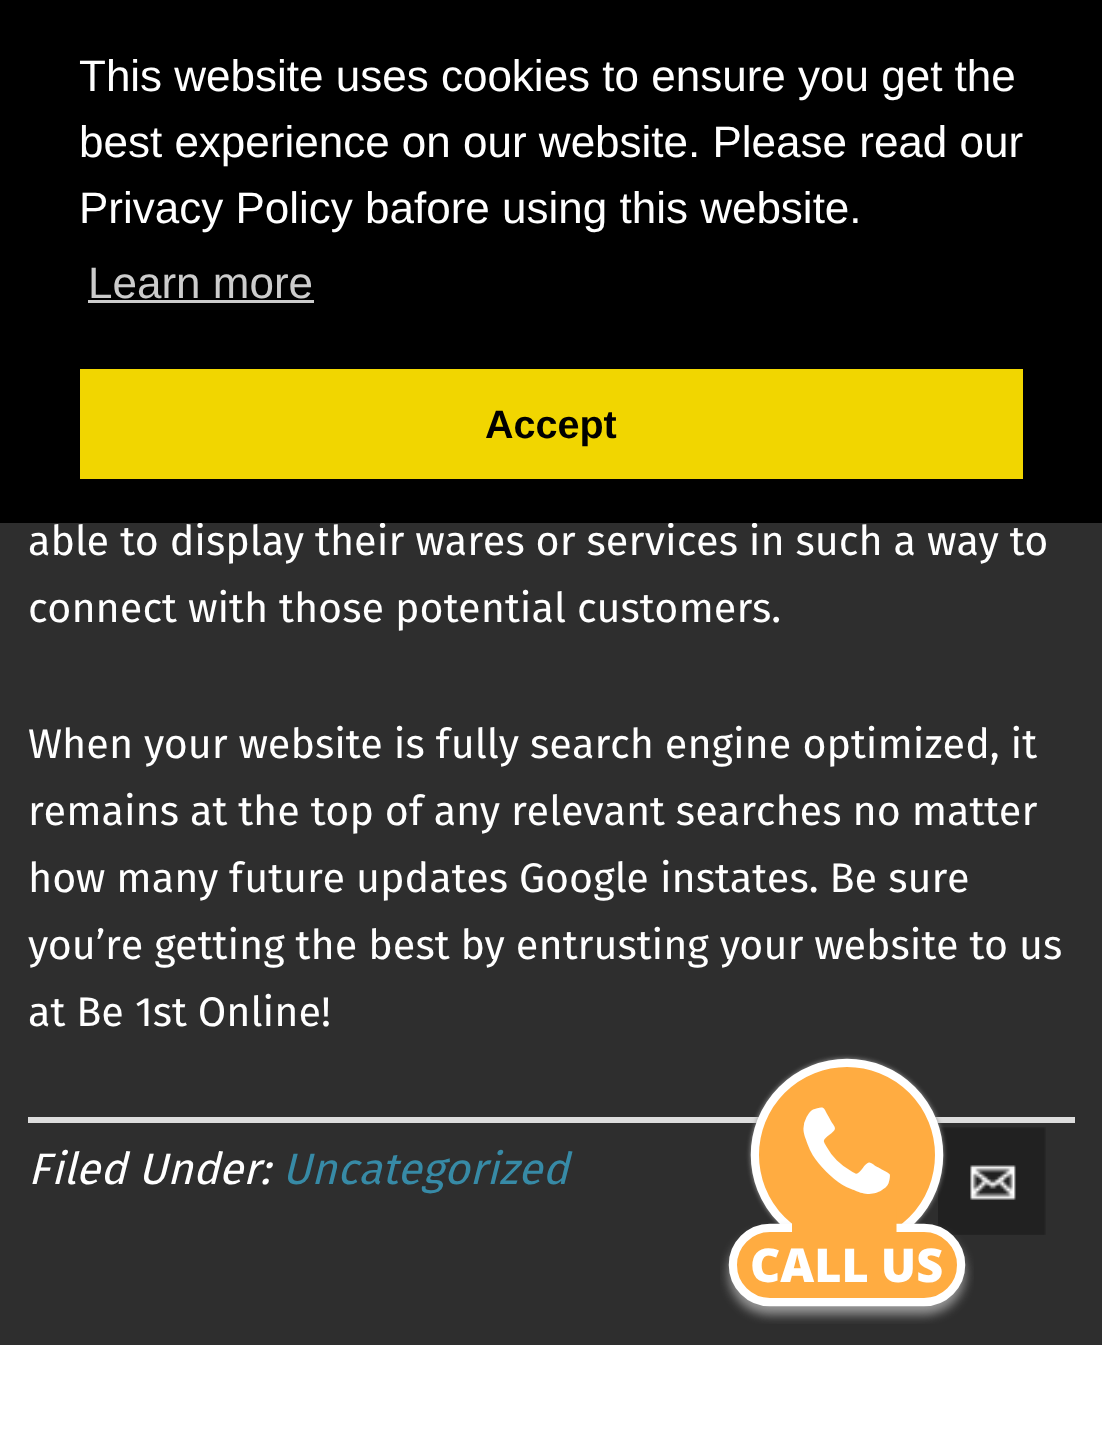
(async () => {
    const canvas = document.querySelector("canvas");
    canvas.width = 1102;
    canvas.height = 1443;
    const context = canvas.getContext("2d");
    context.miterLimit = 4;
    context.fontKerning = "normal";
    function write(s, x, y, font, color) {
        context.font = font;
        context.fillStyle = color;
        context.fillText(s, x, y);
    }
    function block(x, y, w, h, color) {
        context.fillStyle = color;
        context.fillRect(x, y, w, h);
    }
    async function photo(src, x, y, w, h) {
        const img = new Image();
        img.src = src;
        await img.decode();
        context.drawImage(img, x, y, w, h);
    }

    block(0, 0, 1102, 1443, "rgb(46, 46, 46)");
    write("able to display their wares or services in such a way to", 28, 555, "41.25px Fira Sans", "rgb(255, 255, 255)");
    block(0, 0, 1102, 523, "rgb(0, 0, 0)");
    write("This website uses cookies to ensure you get the", 79, 91, "44px Liberation Sans", "rgb(255, 255, 255)");
    write("best experience on our website. Please read our", 79, 157, "44px Liberation Sans", "rgb(255, 255, 255)");
    write("Privacy Policy bafore using this website.", 79, 223, "44px Liberation Sans", "rgb(255, 255, 255)");
    write("Learn more", 88, 298, "44px Liberation Sans", "rgb(204, 204, 204)");
    block(88, 300, 226, 3, "rgb(204, 204, 204)");
    block(80, 369, 943, 110, "rgb(241, 214, 0)");
    write("Accept", 485, 438, "bold 39.5px Liberation Sans", "rgb(0, 0, 0)");
    write("connect with those potential customers.", 28, 622, "41.25px Fira Sans", "rgb(255, 255, 255)");
    write("When your website is fully search engine optimized, it", 28, 758, "41.25px Fira Sans", "rgb(255, 255, 255)");
    write("remains at the top of any relevant searches no matter", 28, 825, "41.25px Fira Sans", "rgb(255, 255, 255)");
    write("how many future updates Google instates. Be sure", 28, 892, "41.25px Fira Sans", "rgb(255, 255, 255)");
    write("you’re getting the best by entrusting your website to us", 28, 959, "41.25px Fira Sans", "rgb(255, 255, 255)");
    write("at Be 1st Online!", 28, 1026, "41.25px Fira Sans", "rgb(255, 255, 255)");
    block(28, 1117, 1047, 6, "rgb(221, 221, 221)");
    write("Filed Under:", 28, 1184, "italic 44px Fira Sans", "rgb(255, 255, 255)");
    write("Uncategorized", 282, 1184, "italic 44px Fira Sans", "rgb(55, 138, 166)");
    await photo("media/1.png", 938, 1127, 108, 108);
    block(0, 1345, 1102, 98, "rgb(255, 255, 255)");
    await photo("media/2.png", 720, 1054, 254, 270);
})();
